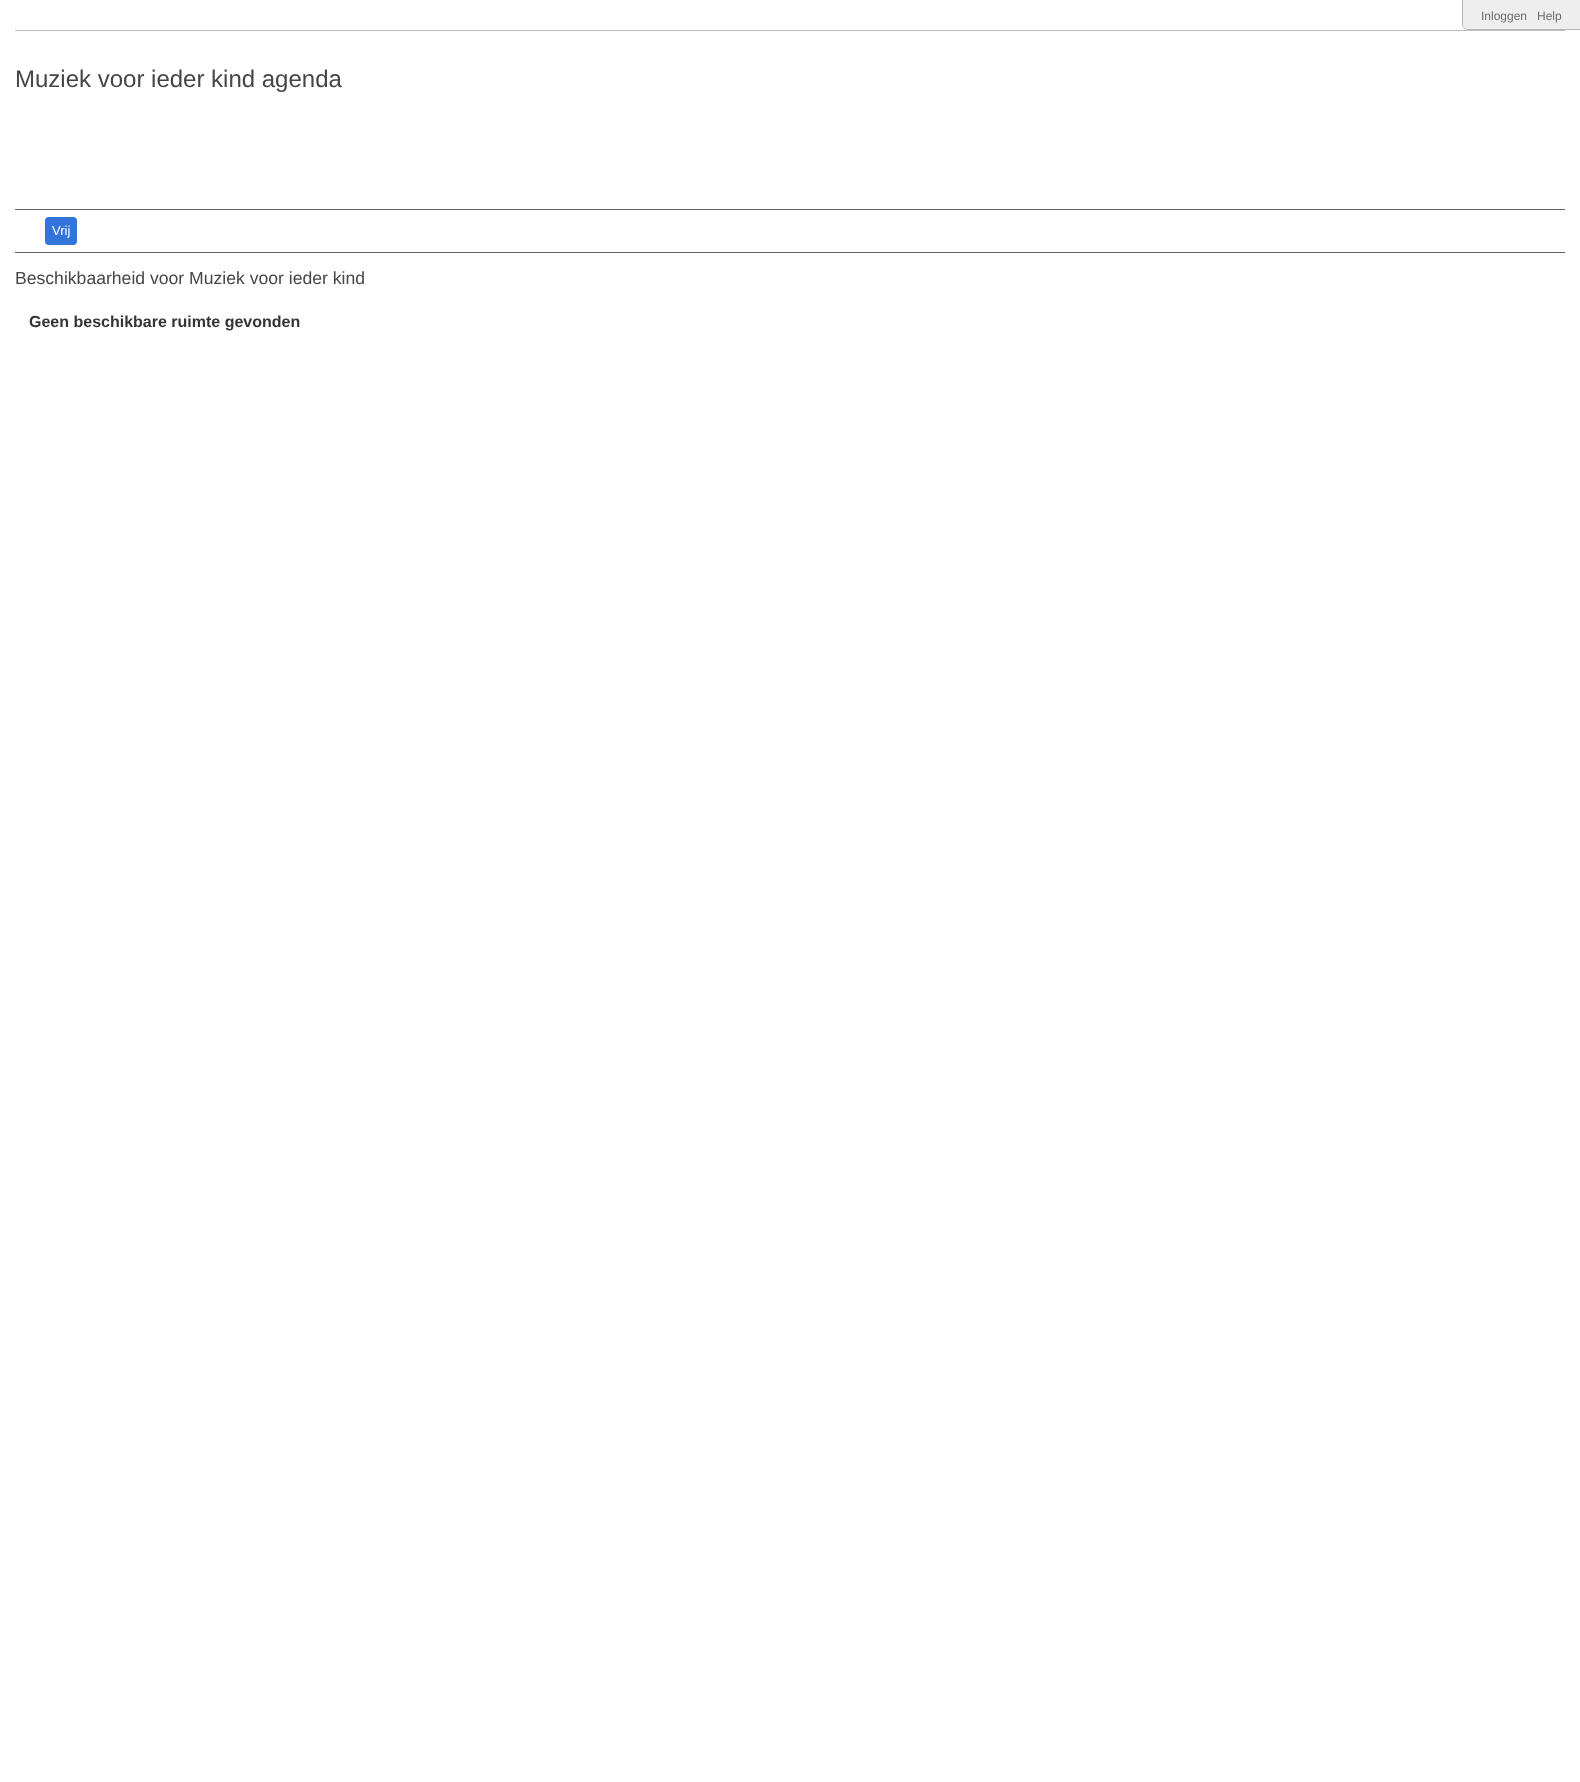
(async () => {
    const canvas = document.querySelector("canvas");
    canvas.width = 1580;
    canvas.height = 1782;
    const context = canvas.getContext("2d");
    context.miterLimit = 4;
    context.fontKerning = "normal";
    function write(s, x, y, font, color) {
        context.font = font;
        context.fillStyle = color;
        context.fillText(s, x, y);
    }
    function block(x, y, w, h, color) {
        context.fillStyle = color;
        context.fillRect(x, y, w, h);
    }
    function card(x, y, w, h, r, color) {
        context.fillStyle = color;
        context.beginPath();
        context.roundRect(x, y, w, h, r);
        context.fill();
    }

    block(0, 0, 1580, 1782, "rgb(255, 255, 255)");
    context.fillStyle = "rgb(238, 238, 238)";
    context.beginPath();
    context.roundRect(1463, 0, 117, 29, [0, 0, 0, 5]);
    context.fill();
    context.fillStyle = "rgb(183, 181, 181)";
    context.beginPath();
    context.moveTo(1462, 0);
    context.lineTo(1580, 0);
    context.lineTo(1580, 30);
    context.lineTo(1468, 30);
    context.bezierCurveTo(1465, 30, 1462, 27, 1462, 24);
    context.closePath();
    context.moveTo(1463, 0);
    context.lineTo(1580, 0);
    context.lineTo(1580, 29);
    context.lineTo(1468, 29);
    context.bezierCurveTo(1465, 29, 1463, 27, 1463, 24);
    context.closePath();
    context.fill("evenodd");
    write("Inloggen", 1481, 20, "12px Liberation Sans", "rgb(107, 107, 107)");
    write("Help", 1537, 20, "12px Liberation Sans", "rgb(107, 107, 107)");
    block(15, 30, 1550, 1, "rgb(189, 189, 189)");
    write("Muziek voor ieder kind agenda", 15, 87, "24px Liberation Sans", "rgb(70, 70, 70)");
    block(15, 209, 1550, 1, "rgb(97, 97, 97)");
    block(15, 252, 1550, 1, "rgb(97, 97, 97)");
    card(45, 217, 32, 28, 4, "rgb(50, 115, 220)");
    write("Vrij", 52, 235, "13px Liberation Sans", "rgb(255, 255, 255)");
    write("Beschikbaarheid voor Muziek voor ieder kind", 15, 284, "17.6px Liberation Sans", "rgb(70, 70, 70)");
    write("Geen beschikbare ruimte gevonden", 29, 327, "bold 16px Liberation Sans", "rgb(53, 53, 53)");
})();
